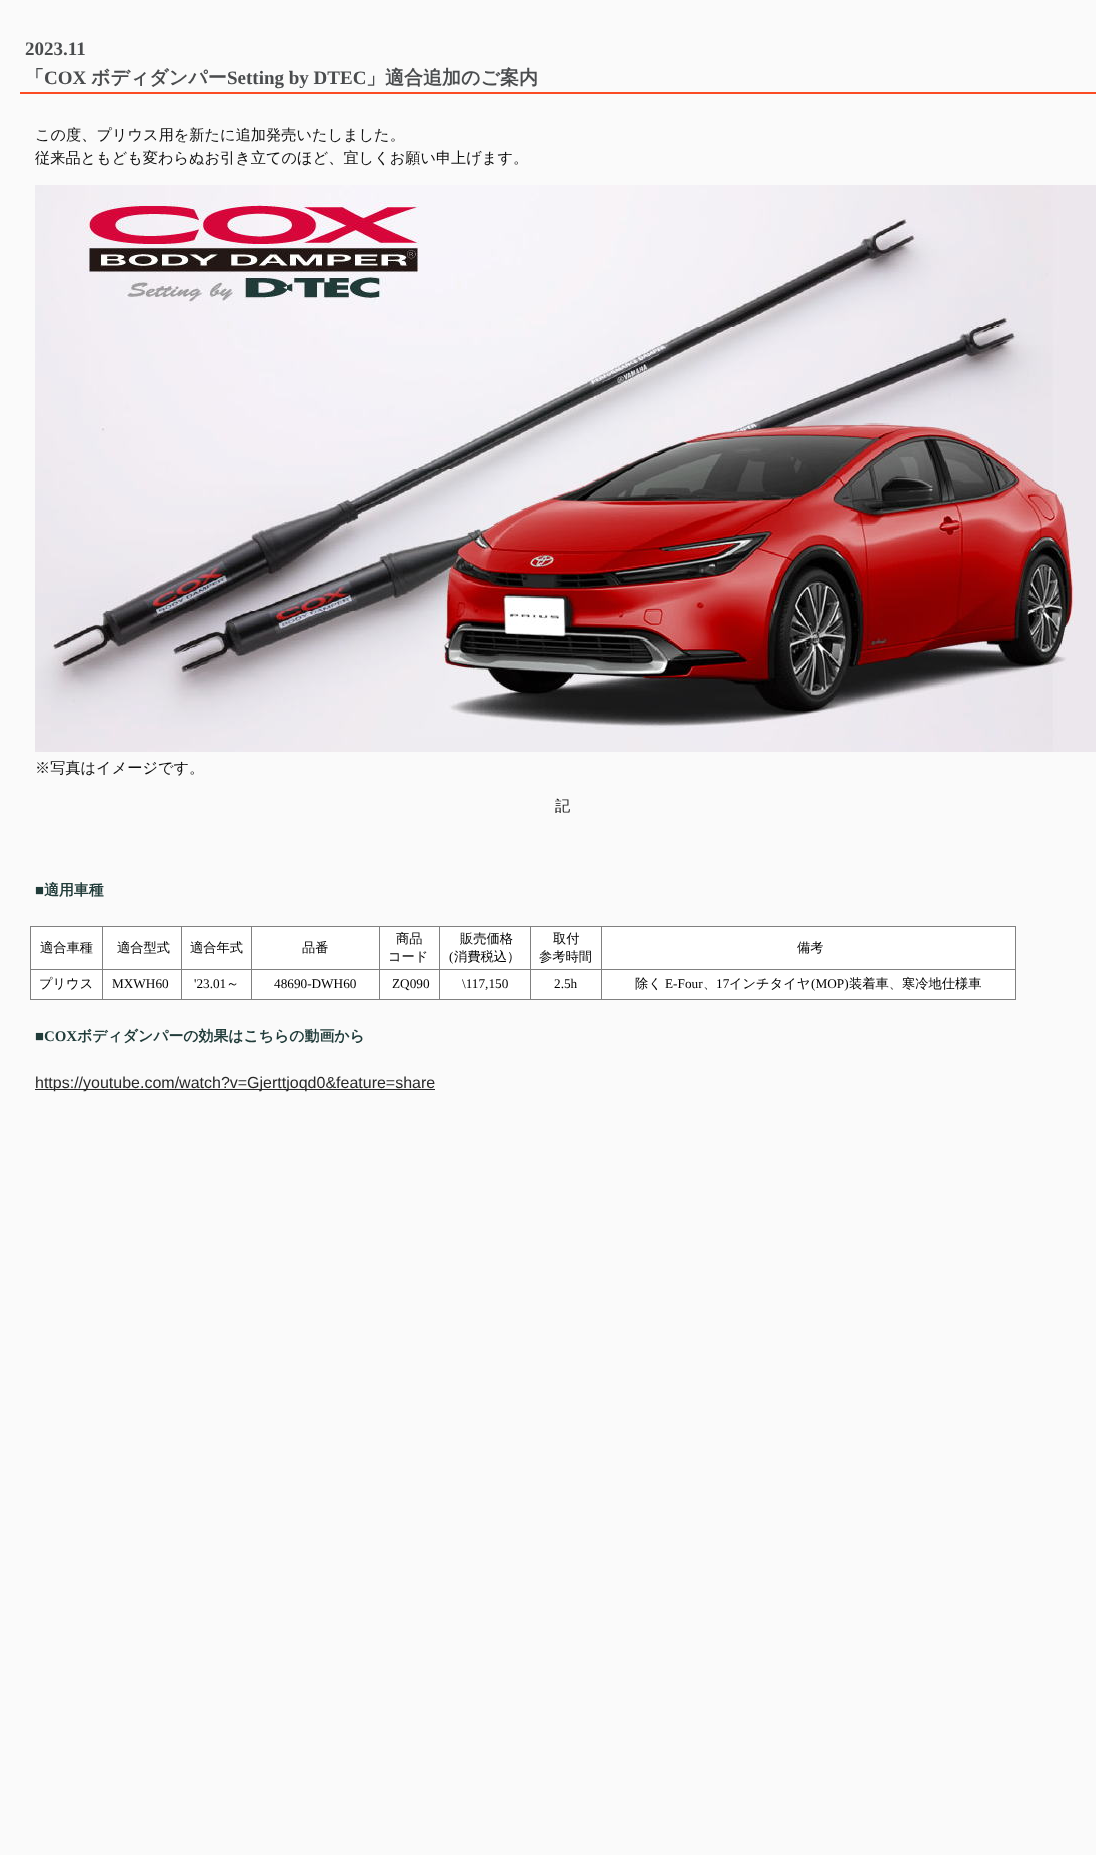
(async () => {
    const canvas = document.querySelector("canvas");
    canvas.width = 1096;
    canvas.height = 1855;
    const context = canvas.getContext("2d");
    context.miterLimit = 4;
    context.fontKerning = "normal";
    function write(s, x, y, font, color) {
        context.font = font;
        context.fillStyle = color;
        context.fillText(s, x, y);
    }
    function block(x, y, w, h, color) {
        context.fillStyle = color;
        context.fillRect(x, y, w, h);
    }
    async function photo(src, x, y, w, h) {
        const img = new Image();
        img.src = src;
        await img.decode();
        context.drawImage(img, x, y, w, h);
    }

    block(0, 0, 1096, 1855, "rgb(250, 250, 250)");
    block(20, 92, 1076, 2, "rgb(251, 75, 35)");
    write("2023.11", 25, 55, "bold 19px Liberation Serif", "rgb(74, 76, 78)");
    write("「", 25, 84, "bold 19px WenQuanYi Zen Hei", "rgb(74, 76, 78)");
    write("COX", 44, 84, "bold 19px Liberation Serif", "rgb(74, 76, 78)");
    write("ボディダンパー", 91, 84, "bold 19px WenQuanYi Zen Hei", "rgb(74, 76, 78)");
    write("Setting by DTEC", 227, 84, "bold 19px Liberation Serif", "rgb(74, 76, 78)");
    write("」適合追加のご案内", 366, 84, "bold 19px WenQuanYi Zen Hei", "rgb(74, 76, 78)");
    write("この度、プリウス用を新たに追加発売いたしました。", 35, 140, "500 15.2px WenQuanYi Zen Hei", "rgb(15, 15, 15)");
    write("従来品ともども変わらぬお引き立てのほど、宜しくお願い申上げます。", 35, 163, "500 15.2px WenQuanYi Zen Hei", "rgb(15, 15, 15)");
    await photo("media/1.png", 35, 185, 1061, 567);
    write("※写真はイメージです。", 35, 773, "500 15.2px WenQuanYi Zen Hei", "rgb(15, 15, 15)");
    write("記", 555, 811, "500 15.2px WenQuanYi Zen Hei", "rgb(15, 15, 15)");
    write("■", 35, 895, "bold 14.9px Liberation Serif", "rgb(32, 59, 57)");
    write("適用車種", 44, 895, "bold 14.9px WenQuanYi Zen Hei", "rgb(32, 59, 57)");
    block(31, 927, 984, 72, "rgb(255, 255, 255)");
    block(30, 926, 986, 1, "rgb(128, 128, 128)");
    block(1015, 926, 1, 74, "rgb(128, 128, 128)");
    block(30, 999, 986, 1, "rgb(128, 128, 128)");
    block(30, 926, 1, 74, "rgb(128, 128, 128)");
    write("適合車種", 40, 952, "500 13.25px WenQuanYi Zen Hei", "rgb(0, 0, 0)");
    block(601, 969, 415, 1, "rgb(128, 128, 128)");
    block(601, 969, 1, 31, "rgb(128, 128, 128)");
    block(530, 969, 72, 1, "rgb(128, 128, 128)");
    block(530, 969, 1, 31, "rgb(128, 128, 128)");
    block(439, 969, 92, 1, "rgb(128, 128, 128)");
    block(439, 969, 1, 31, "rgb(128, 128, 128)");
    block(379, 969, 61, 1, "rgb(128, 128, 128)");
    block(379, 969, 1, 31, "rgb(128, 128, 128)");
    block(251, 969, 129, 1, "rgb(128, 128, 128)");
    block(251, 969, 1, 31, "rgb(128, 128, 128)");
    block(181, 969, 71, 1, "rgb(128, 128, 128)");
    block(181, 969, 1, 31, "rgb(128, 128, 128)");
    block(102, 969, 80, 1, "rgb(128, 128, 128)");
    block(102, 969, 1, 31, "rgb(128, 128, 128)");
    block(30, 969, 73, 1, "rgb(128, 128, 128)");
    block(102, 926, 1, 44, "rgb(128, 128, 128)");
    write("適合型式", 117, 952, "500 13.25px WenQuanYi Zen Hei", "rgb(0, 0, 0)");
    block(181, 926, 1, 44, "rgb(128, 128, 128)");
    write("適合年式", 190, 952, "500 13.25px WenQuanYi Zen Hei", "rgb(0, 0, 0)");
    block(251, 926, 1, 44, "rgb(128, 128, 128)");
    write("品番", 302, 952, "500 13.25px WenQuanYi Zen Hei", "rgb(0, 0, 0)");
    block(379, 926, 1, 44, "rgb(128, 128, 128)");
    write("商品", 396, 943, "500 13.25px WenQuanYi Zen Hei", "rgb(0, 0, 0)");
    write("コード", 388, 961, "500 13.25px WenQuanYi Zen Hei", "rgb(0, 0, 0)");
    block(439, 926, 1, 44, "rgb(128, 128, 128)");
    write("販売価格", 460, 943, "500 13.25px WenQuanYi Zen Hei", "rgb(0, 0, 0)");
    write("(", 449, 961, "13.25px Liberation Serif", "rgb(0, 0, 0)");
    write("消費税込）", 454, 961, "500 13.25px WenQuanYi Zen Hei", "rgb(0, 0, 0)");
    block(530, 926, 1, 44, "rgb(128, 128, 128)");
    write("取付", 553, 943, "500 13.25px WenQuanYi Zen Hei", "rgb(0, 0, 0)");
    write("参考時間", 539, 961, "500 13.25px WenQuanYi Zen Hei", "rgb(0, 0, 0)");
    block(601, 926, 1, 44, "rgb(128, 128, 128)");
    write("備考", 797, 952, "500 13.25px WenQuanYi Zen Hei", "rgb(0, 0, 0)");
    write("プリウス", 39, 988, "500 13.25px WenQuanYi Zen Hei", "rgb(0, 0, 0)");
    write("MXWH60", 112, 988, "13.25px Liberation Serif", "rgb(0, 0, 0)");
    write("'23.01", 194, 988, "13.25px Liberation Serif", "rgb(0, 0, 0)");
    write("～", 226, 988, "500 13.25px WenQuanYi Zen Hei", "rgb(0, 0, 0)");
    write("48690-DWH60", 274, 988, "13.25px Liberation Serif", "rgb(0, 0, 0)");
    write("ZQ090", 392, 988, "13.25px Liberation Serif", "rgb(0, 0, 0)");
    write("\\117,150", 462, 988, "13.25px Liberation Serif", "rgb(0, 0, 0)");
    write("2.5h", 554, 988, "13.25px Liberation Serif", "rgb(0, 0, 0)");
    write("除く", 635, 988, "500 13.25px WenQuanYi Zen Hei", "rgb(0, 0, 0)");
    write("E-Four", 665, 988, "13.25px Liberation Serif", "rgb(0, 0, 0)");
    write("、", 703, 988, "500 13.25px WenQuanYi Zen Hei", "rgb(0, 0, 0)");
    write("17", 716, 988, "13.25px Liberation Serif", "rgb(0, 0, 0)");
    write("インチタイヤ", 729, 988, "500 13.25px WenQuanYi Zen Hei", "rgb(0, 0, 0)");
    write("(MOP)", 811, 988, "13.25px Liberation Serif", "rgb(0, 0, 0)");
    write("装着車、寒冷地仕様車", 849, 988, "500 13.25px WenQuanYi Zen Hei", "rgb(0, 0, 0)");
    write("■COX", 35, 1041, "bold 14.9px Liberation Serif", "rgb(32, 59, 57)");
    write("ボディダンパーの効果はこちらの動画から", 77, 1041, "bold 14.9px WenQuanYi Zen Hei", "rgb(32, 59, 57)");
    block(35, 1089, 400, 1, "rgb(40, 40, 40)");
    write("https://youtube.com/watch?v=Gjerttjoqd0&feature=share", 35, 1088, "16px Liberation Sans", "rgb(40, 40, 40)");
})();
